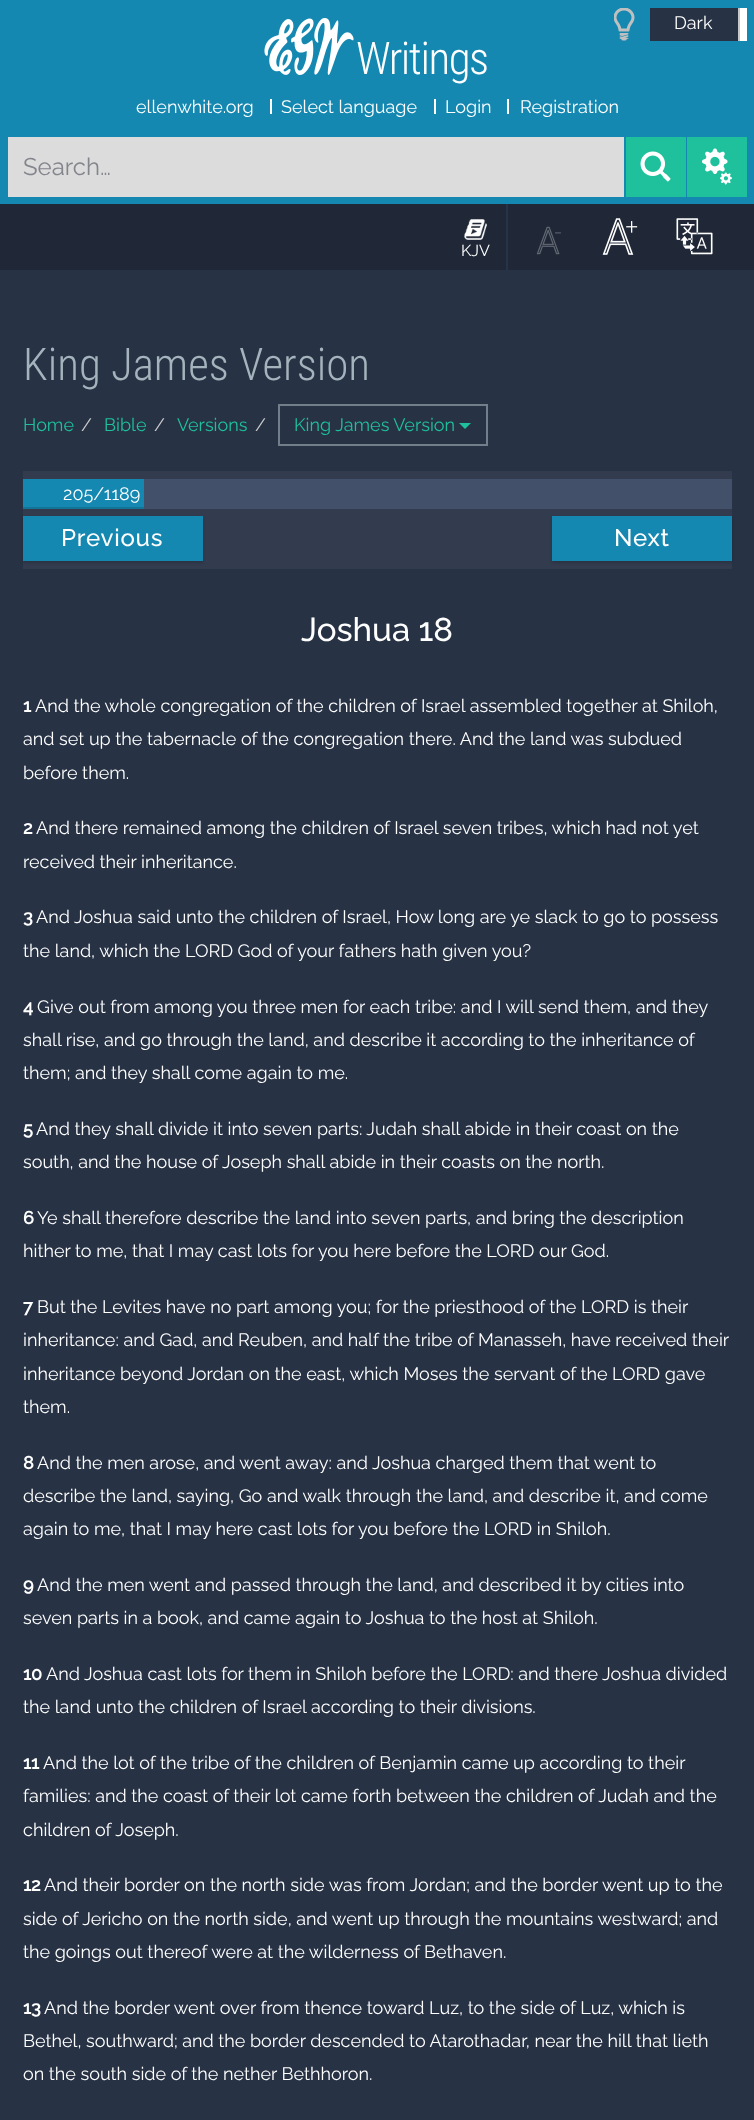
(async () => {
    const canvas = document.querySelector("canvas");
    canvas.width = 754;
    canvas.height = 2120;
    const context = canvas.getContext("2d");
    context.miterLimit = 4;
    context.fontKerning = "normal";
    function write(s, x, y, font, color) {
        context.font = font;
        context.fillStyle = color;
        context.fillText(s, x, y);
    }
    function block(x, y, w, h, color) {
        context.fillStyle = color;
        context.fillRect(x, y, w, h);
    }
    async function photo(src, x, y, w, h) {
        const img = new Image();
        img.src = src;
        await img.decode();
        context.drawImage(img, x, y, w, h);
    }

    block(0, 0, 754, 2120, "rgb(39, 50, 69)");
    block(0, 0, 754, 204, "rgb(21, 136, 177)");
    await photo("media/1.png", 614, 8, 21, 33);
    block(650, 8, 88, 33, "rgb(39, 50, 69)");
    write("Dark", 674, 29, "18px Raleway", "rgb(255, 255, 255)");
    block(740, 8, 7, 33, "rgb(255, 255, 255)");
    block(738, 8, 2, 33, "rgb(200, 200, 200)");
    write("ellenwhite.org", 136, 113, "18px Raleway", "rgb(255, 255, 255)");
    block(270, 99, 2, 15, "rgb(255, 255, 255)");
    write("Select language", 281, 113, "18px Raleway", "rgb(255, 255, 255)");
    block(434, 99, 2, 15, "rgb(255, 255, 255)");
    write("Login", 445, 113, "18px Raleway", "rgb(255, 255, 255)");
    block(507, 99, 2, 15, "rgb(255, 255, 255)");
    write("Registration", 520, 113, "18px Raleway", "rgb(255, 255, 255)");
    block(8, 137, 616, 60, "rgb(220, 220, 220)");
    write("Search…", 23, 175, "24px Raleway", "rgb(131, 133, 140)");
    block(626, 137, 60, 60, "rgb(30, 193, 156)");
    await photo("media/2.png", 640, 151, 31, 31);
    block(687, 137, 60, 60, "rgb(30, 193, 156)");
    await photo("media/3.png", 702, 148, 30, 37);
    await photo("media/4.png", 264, 18, 90, 57);
    context.letterSpacing = "-1.5px";
    write("Writings", 356, 74, "300 45px Roboto Condensed", "rgb(255, 255, 255)");
    block(0, 204, 754, 66, "rgb(32, 40, 55)");
    await photo("media/5.png", 464, 219, 23, 21);
    context.letterSpacing = "0px";
    write("KJV", 461, 256, "16px Raleway", "rgb(255, 255, 255)");
    block(506, 204, 2, 66, "rgb(36, 52, 75)");
    await photo("media/6.png", 536, 226, 25, 29);
    await photo("media/7.png", 602, 218, 36, 37);
    await photo("media/8.png", 676, 218, 37, 37);
    write("King James Version", 23, 380, "300 45px Roboto Condensed", "rgb(164, 179, 188)");
    write("Home", 23, 431, "18px Raleway", "rgb(30, 193, 156)");
    write("/", 81, 431, "18px Raleway", "rgb(204, 204, 204)");
    write("Bible", 104, 431, "18px Raleway", "rgb(30, 193, 156)");
    write("/", 154, 431, "18px Raleway", "rgb(204, 204, 204)");
    write("Versions", 177, 431, "18px Raleway", "rgb(30, 193, 156)");
    write("/", 255, 431, "18px Raleway", "rgb(204, 204, 204)");
    context.strokeStyle = "rgb(112, 127, 138)";
    context.lineWidth = 2;
    context.strokeRect(279, 405, 208, 40);
    write("King James Version", 294, 431, "18px Raleway", "rgb(30, 193, 156)");
    context.beginPath();
    context.moveTo(459, 423);
    context.lineTo(471, 423);
    context.lineTo(465, 429);
    context.closePath();
    context.fill();
    block(23, 471, 709, 98, "rgb(50, 60, 78)");
    block(144, 479, 588, 30, "rgb(67, 80, 105)");
    block(23, 479, 121, 28, "rgb(21, 136, 177)");
    block(23, 507, 121, 2, "rgb(18, 116, 150)");
    write("205/1189", 63, 500, "18px Raleway", "rgb(255, 255, 255)");
    context.fillStyle = "rgba(0, 0, 0, 0.15)";
    context.filter = "blur(1.5px)";
    context.beginPath();
    context.rect(23, 518, 180, 45);
    context.fill();
    context.filter = "none";
    block(23, 516, 180, 45, "rgb(21, 136, 177)");
    context.letterSpacing = "0.75px";
    write("Previous", 61, 546, "500 24px Raleway", "rgb(255, 255, 255)");
    context.fillStyle = "rgba(0, 0, 0, 0.15)";
    context.filter = "blur(1.5px)";
    context.beginPath();
    context.rect(552, 518, 180, 45);
    context.fill();
    context.filter = "none";
    block(552, 516, 180, 45, "rgb(21, 136, 177)");
    write("Next", 614, 546, "500 24px Raleway", "rgb(255, 255, 255)");
    context.letterSpacing = "0px";
    write("Joshua 18", 301, 641, "500 33px Raleway", "rgb(255, 255, 255)");
    write("1", 23, 712, "bold 18px Raleway", "rgb(255, 255, 255)");
    write("And the whole congregation of the children of Israel assembled together at Shiloh,", 35, 712, "18px Raleway", "rgb(255, 255, 255)");
    write("and set up the tabernacle of the congregation there. And the land was subdued", 23, 745, "18px Raleway", "rgb(255, 255, 255)");
    write("before them.", 23, 779, "18px Raleway", "rgb(255, 255, 255)");
    write("2", 23, 834, "bold 18px Raleway", "rgb(255, 255, 255)");
    write("And there remained among the children of Israel seven tribes, which had not yet", 36, 834, "18px Raleway", "rgb(255, 255, 255)");
    write("received their inheritance.", 23, 868, "18px Raleway", "rgb(255, 255, 255)");
    write("3", 23, 923, "bold 18px Raleway", "rgb(255, 255, 255)");
    write("And Joshua said unto the children of Israel, How long are ye slack to go to possess", 36, 923, "18px Raleway", "rgb(255, 255, 255)");
    write("the land, which the LORD God of your fathers hath given you?", 23, 957, "18px Raleway", "rgb(255, 255, 255)");
    write("4", 23, 1013, "bold 18px Raleway", "rgb(255, 255, 255)");
    write("Give out from among you three men for each tribe: and I will send them, and they", 37, 1013, "18px Raleway", "rgb(255, 255, 255)");
    write("shall rise, and go through the land, and describe it according to the inheritance of", 23, 1046, "18px Raleway", "rgb(255, 255, 255)");
    write("them; and they shall come again to me.", 23, 1079, "18px Raleway", "rgb(255, 255, 255)");
    write("5", 23, 1135, "bold 18px Raleway", "rgb(255, 255, 255)");
    write("And they shall divide it into seven parts: Judah shall abide in their coast on the", 36, 1135, "18px Raleway", "rgb(255, 255, 255)");
    write("south, and the house of Joseph shall abide in their coasts on the north.", 23, 1168, "18px Raleway", "rgb(255, 255, 255)");
    write("6", 23, 1224, "bold 18px Raleway", "rgb(255, 255, 255)");
    write("Ye shall therefore describe the land into seven parts, and bring the description", 37, 1224, "18px Raleway", "rgb(255, 255, 255)");
    write("hither to me, that I may cast lots for you here before the LORD our God.", 23, 1257, "18px Raleway", "rgb(255, 255, 255)");
    write("7", 23, 1313, "bold 18px Raleway", "rgb(255, 255, 255)");
    write("But the Levites have no part among you; for the priesthood of the LORD is their", 37, 1313, "18px Raleway", "rgb(255, 255, 255)");
    write("inheritance: and Gad, and Reuben, and half the tribe of Manasseh, have received their", 23, 1346, "18px Raleway", "rgb(255, 255, 255)");
    write("inheritance beyond Jordan on the east, which Moses the servant of the LORD gave", 23, 1380, "18px Raleway", "rgb(255, 255, 255)");
    write("them.", 23, 1413, "18px Raleway", "rgb(255, 255, 255)");
    write("8", 23, 1469, "bold 18px Raleway", "rgb(255, 255, 255)");
    write("And the men arose, and went away: and Joshua charged them that went to", 37, 1469, "18px Raleway", "rgb(255, 255, 255)");
    write("describe the land, saying, Go and walk through the land, and describe it, and come", 23, 1502, "18px Raleway", "rgb(255, 255, 255)");
    write("again to me, that I may here cast lots for you before the LORD in Shiloh.", 23, 1535, "18px Raleway", "rgb(255, 255, 255)");
    write("9", 23, 1591, "bold 18px Raleway", "rgb(255, 255, 255)");
    write("And the men went and passed through the land, and described it by cities into", 37, 1591, "18px Raleway", "rgb(255, 255, 255)");
    write("seven parts in a book, and came again to Joshua to the host at Shiloh.", 23, 1624, "18px Raleway", "rgb(255, 255, 255)");
    write("10", 23, 1680, "bold 18px Raleway", "rgb(255, 255, 255)");
    write("And Joshua cast lots for them in Shiloh before the LORD: and there Joshua divided", 46, 1680, "18px Raleway", "rgb(255, 255, 255)");
    write("the land unto the children of Israel according to their divisions.", 23, 1713, "18px Raleway", "rgb(255, 255, 255)");
    write("11", 23, 1769, "bold 18px Raleway", "rgb(255, 255, 255)");
    write("And the lot of the tribe of the children of Benjamin came up according to their", 43, 1769, "18px Raleway", "rgb(255, 255, 255)");
    write("families: and the coast of their lot came forth between the children of Judah and the", 23, 1802, "18px Raleway", "rgb(255, 255, 255)");
    write("children of Joseph.", 23, 1836, "18px Raleway", "rgb(255, 255, 255)");
    write("12", 23, 1891, "bold 18px Raleway", "rgb(255, 255, 255)");
    write("And their border on the north side was from Jordan; and the border went up to the", 44, 1891, "18px Raleway", "rgb(255, 255, 255)");
    write("side of Jericho on the north side, and went up through the mountains westward; and", 23, 1925, "18px Raleway", "rgb(255, 255, 255)");
    write("the goings out thereof were at the wilderness of Bethaven.", 23, 1958, "18px Raleway", "rgb(255, 255, 255)");
    write("13", 23, 2014, "bold 18px Raleway", "rgb(255, 255, 255)");
    write("And the border went over from thence toward Luz, to the side of Luz, which is", 44, 2014, "18px Raleway", "rgb(255, 255, 255)");
    write("Bethel, southward; and the border descended to Atarothadar, near the hill that lieth", 23, 2047, "18px Raleway", "rgb(255, 255, 255)");
    write("on the south side of the nether Bethhoron.", 23, 2080, "18px Raleway", "rgb(255, 255, 255)");
})();
